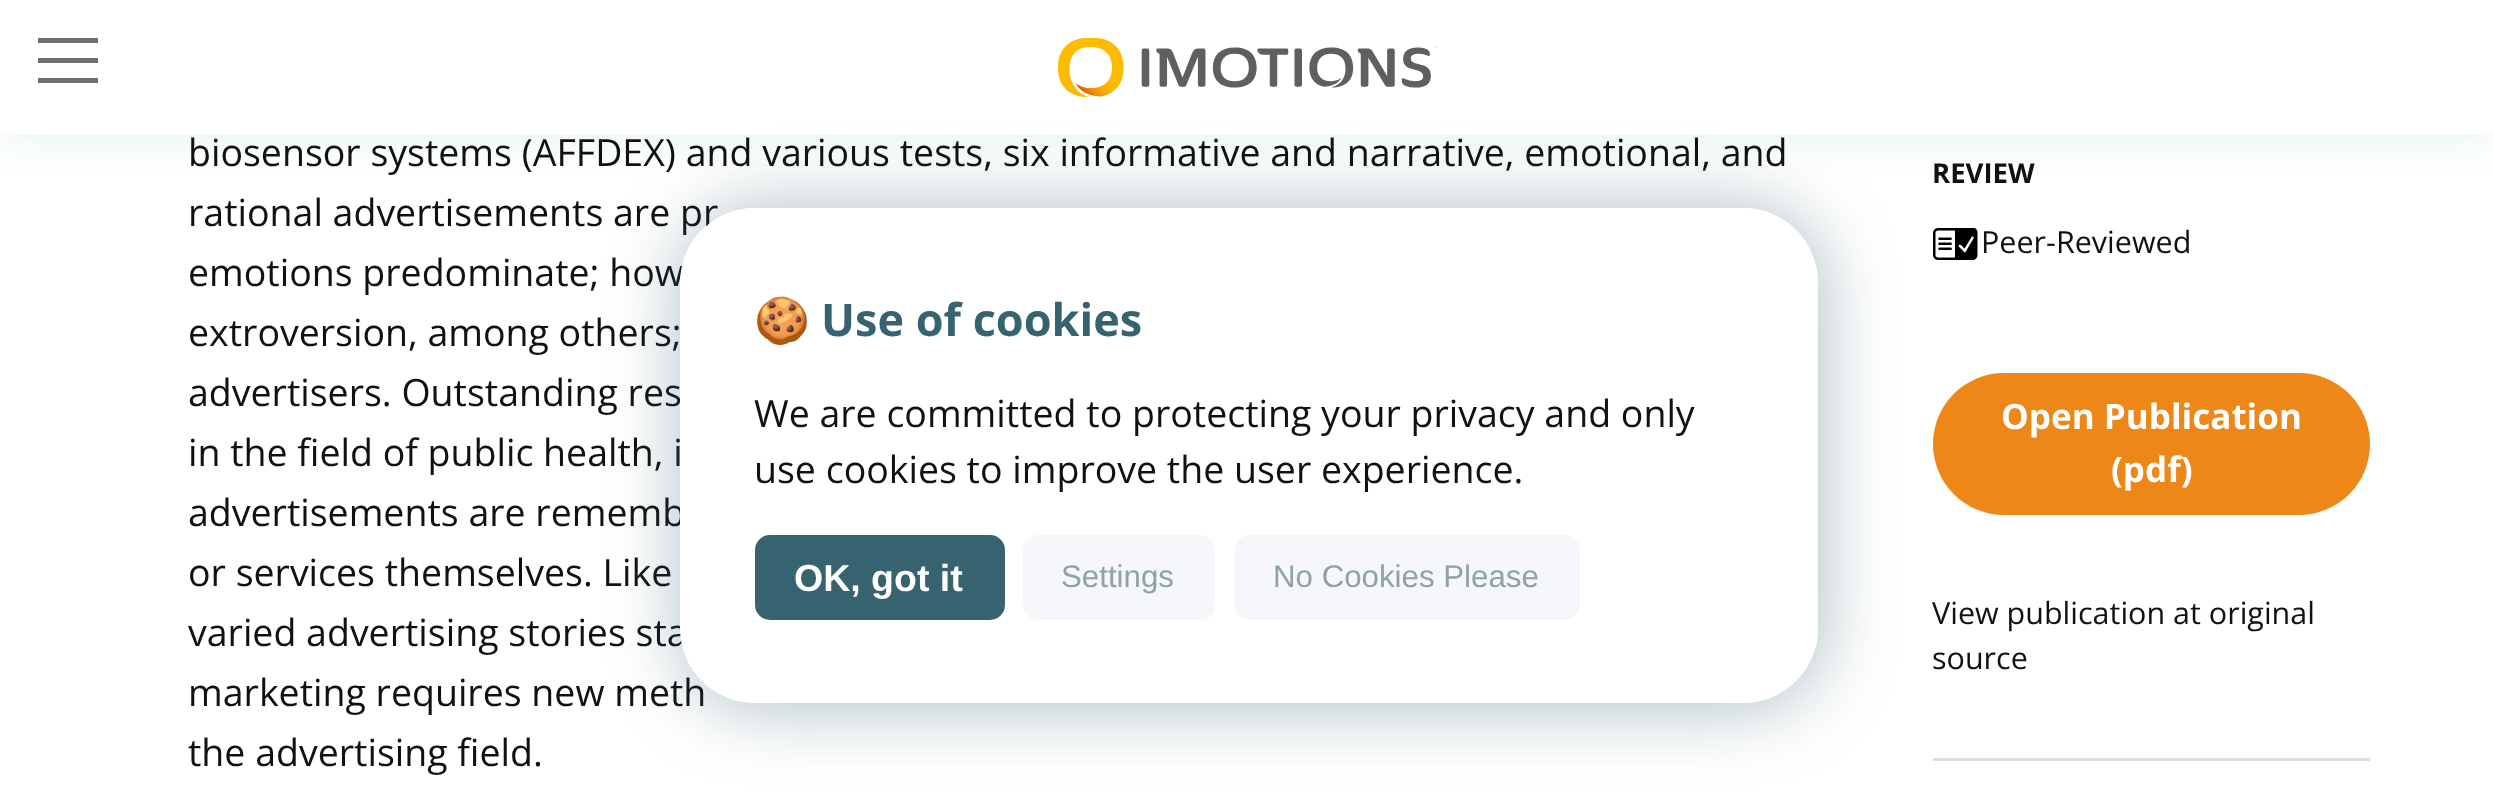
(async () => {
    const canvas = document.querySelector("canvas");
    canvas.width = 2493;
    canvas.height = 795;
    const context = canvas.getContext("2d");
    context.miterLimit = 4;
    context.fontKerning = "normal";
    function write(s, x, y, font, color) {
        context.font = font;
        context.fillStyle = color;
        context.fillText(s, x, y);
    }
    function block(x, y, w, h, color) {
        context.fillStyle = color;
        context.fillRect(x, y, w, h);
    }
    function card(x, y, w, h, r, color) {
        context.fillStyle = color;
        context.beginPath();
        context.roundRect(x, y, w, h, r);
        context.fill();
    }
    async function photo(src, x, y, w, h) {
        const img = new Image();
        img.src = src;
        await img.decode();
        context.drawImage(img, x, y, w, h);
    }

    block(0, 0, 2493, 795, "rgb(255, 255, 255)");
    context.fillStyle = "rgba(0, 132, 137, 0.1)";
    context.filter = "blur(19px)";
    context.beginPath();
    context.rect(0, 3, 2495, 135);
    context.fill();
    context.filter = "none";
    block(0, 0, 2493, 135, "rgb(255, 255, 255)");
    block(38, 38, 60, 5, "rgb(112, 112, 112)");
    block(38, 58, 60, 5, "rgb(112, 112, 112)");
    block(38, 78, 60, 5, "rgb(112, 112, 112)");
    await photo("media/1.png", 1058, 38, 379, 60);
    write("biosensor systems (AFFDEX) and various tests, six informative and narrative, emotional, and", 188, 166, "37.5px Open Sans", "rgb(17, 17, 17)");
    write("rational advertisements are pr", 188, 226, "37.5px Open Sans", "rgb(17, 17, 17)");
    write("emotions predominate; how", 188, 286, "37.5px Open Sans", "rgb(17, 17, 17)");
    write("extroversion, among others;", 188, 346, "37.5px Open Sans", "rgb(17, 17, 17)");
    write("advertisers. Outstanding res", 188, 406, "37.5px Open Sans", "rgb(17, 17, 17)");
    write("in the field of public health, i", 188, 466, "37.5px Open Sans", "rgb(17, 17, 17)");
    write("advertisements are rememb", 188, 526, "37.5px Open Sans", "rgb(17, 17, 17)");
    write("or services themselves. Like", 188, 586, "37.5px Open Sans", "rgb(17, 17, 17)");
    write("varied advertising stories sta", 188, 646, "37.5px Open Sans", "rgb(17, 17, 17)");
    write("marketing requires new meth", 188, 706, "37.5px Open Sans", "rgb(17, 17, 17)");
    write("the advertising field.", 188, 766, "37.5px Open Sans", "rgb(17, 17, 17)");
    write("REVIEW", 1932, 183, "bold 27.5px Open Sans", "rgb(17, 17, 17)");
    await photo("media/2.png", 1933, 228, 45, 32);
    write("Peer-Reviewed", 1981, 253, "30.5px Open Sans", "rgb(17, 17, 17)");
    card(1933, 373, 437, 142, 71, "rgb(237, 135, 23)");
    write("Open Publication", 2001, 429, "bold 35px Open Sans", "rgb(255, 255, 255)");
    write("(pdf)", 2111, 482, "bold 35px Open Sans", "rgb(255, 255, 255)");
    write("View publication at original", 1932, 624, "30.5px Open Sans", "rgb(17, 17, 17)");
    write("source", 1932, 669, "30.5px Open Sans", "rgb(17, 17, 17)");
    block(1933, 758, 437, 3, "rgb(221, 221, 221)");
    context.save();
    context.beginPath();
    context.moveTo(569, 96);
    context.lineTo(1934, 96);
    context.lineTo(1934, 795);
    context.lineTo(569, 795);
    context.closePath();
    context.moveTo(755, 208);
    context.lineTo(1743, 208);
    context.bezierCurveTo(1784.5, 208, 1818, 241.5, 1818, 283);
    context.lineTo(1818, 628);
    context.bezierCurveTo(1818, 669.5, 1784.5, 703, 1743, 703);
    context.lineTo(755, 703);
    context.bezierCurveTo(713.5, 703, 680, 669.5, 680, 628);
    context.lineTo(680, 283);
    context.bezierCurveTo(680, 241.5, 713.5, 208, 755, 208);
    context.closePath();
    context.clip("evenodd");
    context.fillStyle = "rgba(55, 98, 111, 0.43)";
    context.filter = "blur(37.5px)";
    context.beginPath();
    context.roundRect(683, 210, 1137, 495, 75);
    context.fill();
    context.filter = "none";
    context.restore();
    card(680, 208, 1138, 495, 75, "rgb(255, 255, 255)");
    write("🍪", 754, 336, "bold 45px Noto Color Emoji", "rgb(55, 98, 111)");
    write("Use of cookies", 821, 336, "bold 45px Open Sans", "rgb(55, 98, 111)");
    write("We are committed to protecting your privacy and only", 754, 427, "37.5px Open Sans", "rgb(17, 17, 17)");
    write("use cookies to improve the user experience.", 754, 483, "37.5px Open Sans", "rgb(17, 17, 17)");
    card(755, 535, 250, 85, 15, "rgb(55, 98, 111)");
    write("OK, got it", 794, 591, "bold 37.5px Liberation Sans", "rgb(255, 255, 255)");
    card(1023, 535, 192, 85, 15, "rgb(245, 247, 251)");
    write("Settings", 1061, 587, "31.25px Liberation Sans", "rgb(142, 162, 167)");
    card(1235, 535, 345, 85, 15, "rgb(245, 247, 251)");
    write("No Cookies Please", 1273, 587, "31.25px Liberation Sans", "rgb(142, 162, 167)");
})();
